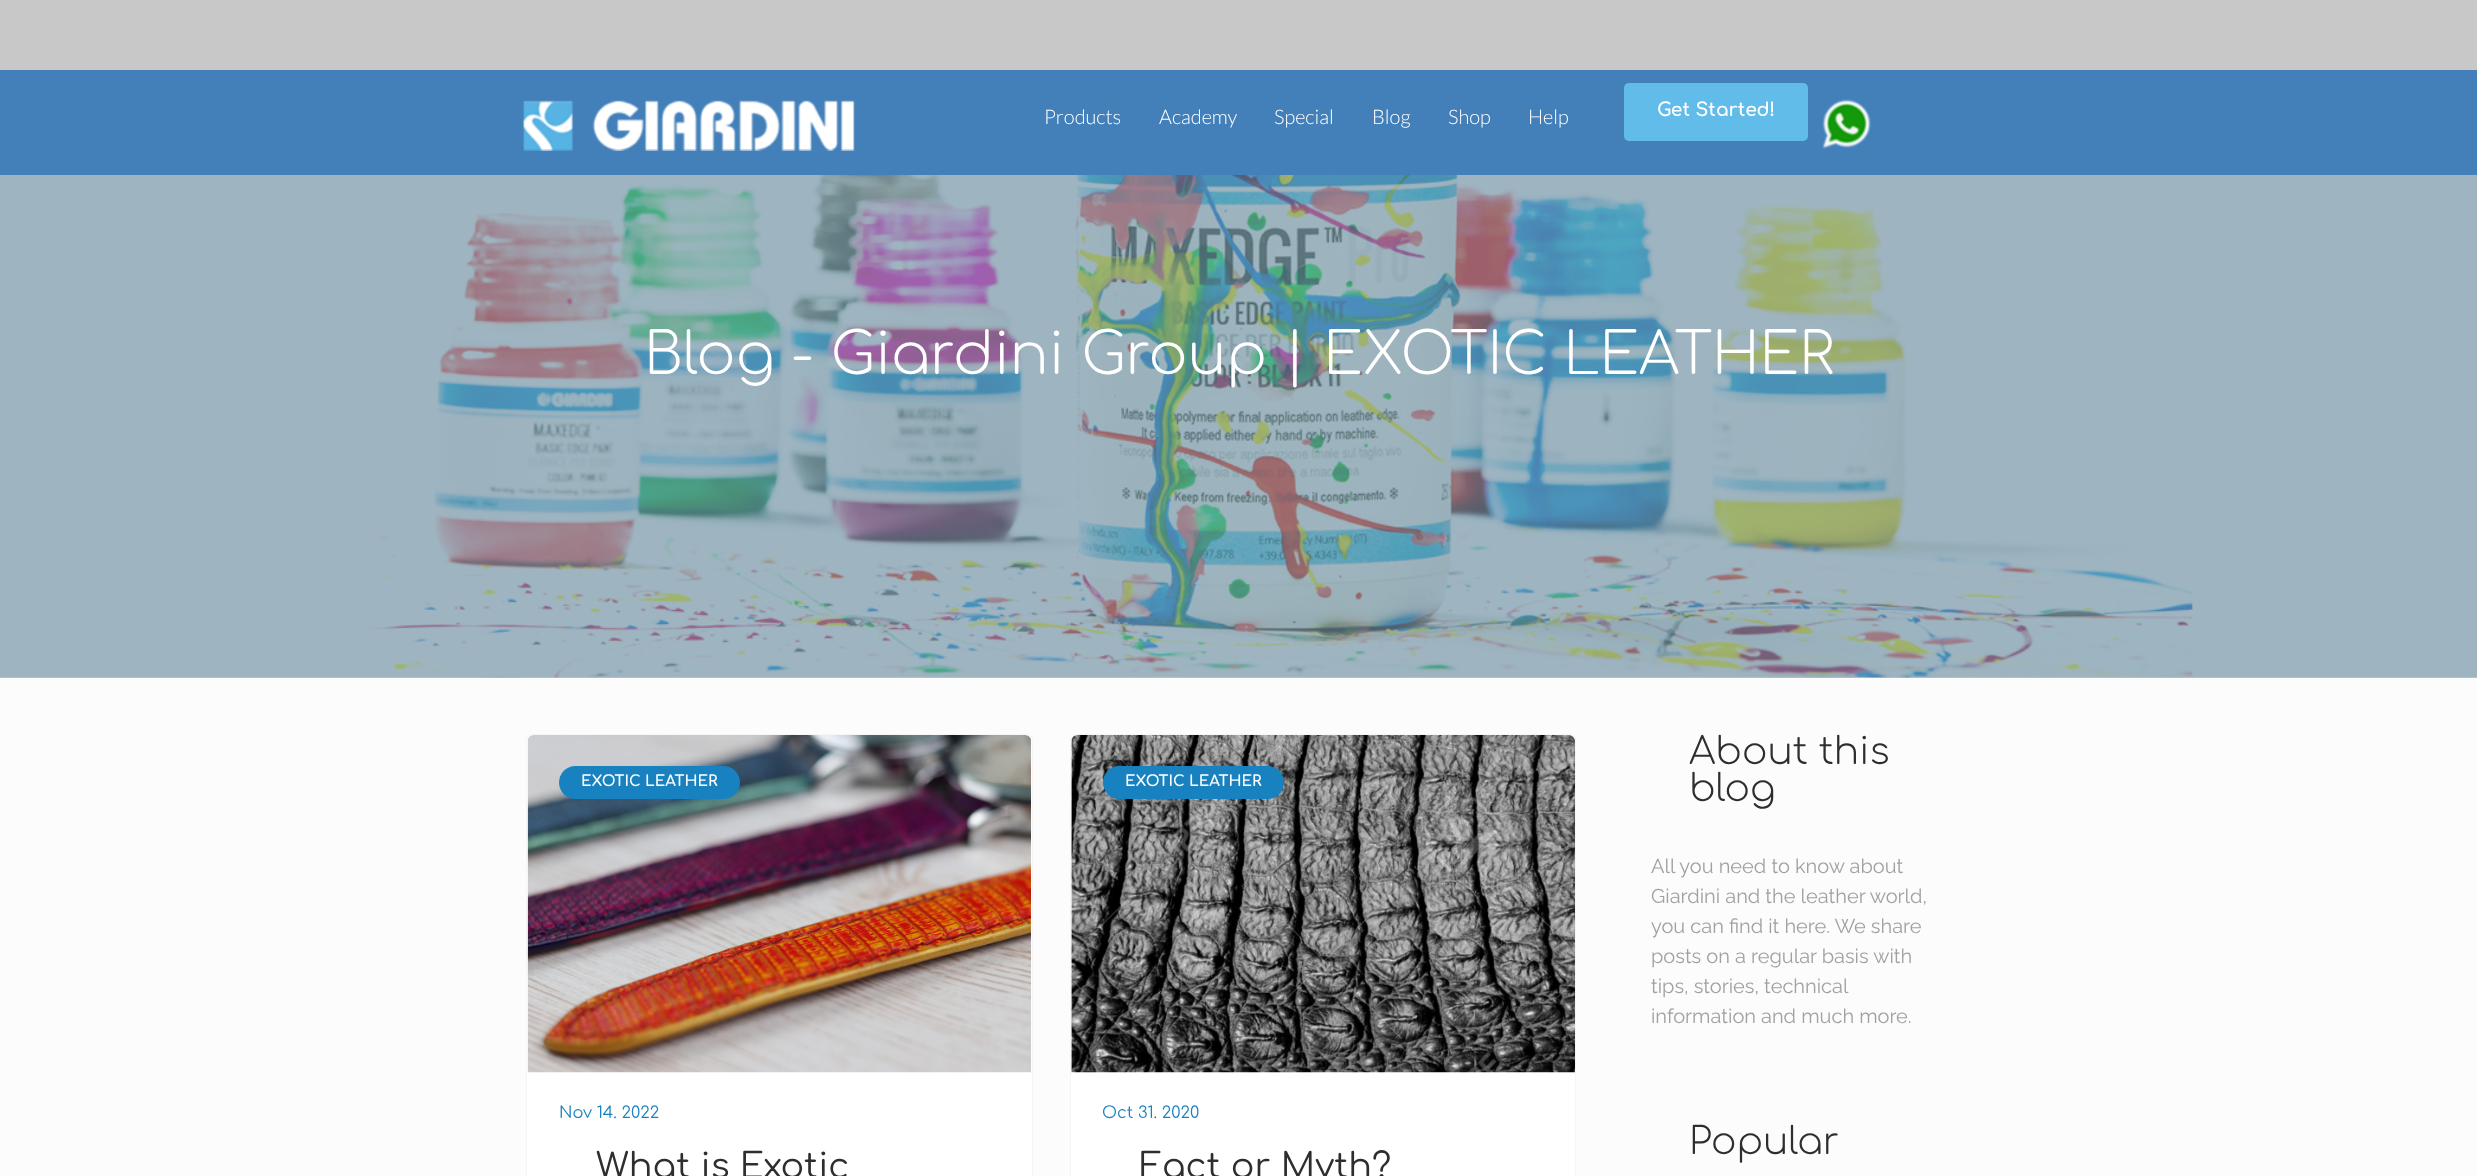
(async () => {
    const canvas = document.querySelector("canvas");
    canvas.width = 2477;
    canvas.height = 1176;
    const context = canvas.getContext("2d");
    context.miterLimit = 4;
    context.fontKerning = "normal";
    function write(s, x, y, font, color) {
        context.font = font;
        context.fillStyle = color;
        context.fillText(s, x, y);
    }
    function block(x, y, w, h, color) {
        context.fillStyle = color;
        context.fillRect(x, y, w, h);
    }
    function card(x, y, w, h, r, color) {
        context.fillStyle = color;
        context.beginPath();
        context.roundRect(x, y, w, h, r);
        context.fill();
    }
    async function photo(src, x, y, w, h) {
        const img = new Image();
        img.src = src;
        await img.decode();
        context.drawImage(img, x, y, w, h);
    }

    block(0, 0, 2477, 1176, "rgb(252, 252, 252)");
    block(0, 677, 2477, 1, "rgb(205, 205, 205)");
    block(0, 0, 2477, 70, "rgb(200, 200, 200)");
    block(0, 70, 2477, 105, "rgb(67, 128, 186)");
    await photo("media/1.png", 523, 100, 332, 51);
    write("Products", 1044, 124, "300 20px Lato", "rgb(255, 255, 255)");
    write("Academy", 1159, 124, "300 20px Lato", "rgb(255, 255, 255)");
    write("Special", 1274, 124, "300 20px Lato", "rgb(255, 255, 255)");
    write("Blog", 1372, 124, "300 20px Lato", "rgb(255, 255, 255)");
    write("Shop", 1448, 124, "300 20px Lato", "rgb(255, 255, 255)");
    write("Help", 1528, 124, "300 20px Lato", "rgb(255, 255, 255)");
    context.fillStyle = "rgb(98, 188, 233)";
    context.beginPath();
    context.roundRect(1625.5, 84.5, 181, 55, 3.5);
    context.fill();
    context.strokeStyle = "rgb(98, 188, 233)";
    context.lineWidth = 3;
    context.stroke();
    write("Get Started!", 1657, 116, "bold 18.75px Comfortaa", "rgb(255, 255, 255)");
    await photo("media/2.png", 1822, 99, 49, 50);
    await photo("media/3.png", 0, 175, 2477, 503);
    write("Blog - Giardini Group | EXOTIC LEATHER", 644, 374, "300 57.5px Comfortaa", "rgb(255, 255, 255)");
    context.beginPath();
    context.roundRect(526.5, 734.5, 506, 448, 5.5);
    context.fill();
    context.strokeStyle = "rgb(245, 245, 245)";
    context.lineWidth = 1;
    context.stroke();
    await photo("media/4.png", 527, 735, 504, 338);
    card(559, 766, 181, 33, 16.5, "rgb(23, 130, 191)");
    write("EXOTIC LEATHER", 581, 786, "bold 15px Comfortaa", "rgb(255, 255, 255)");
    write("Nov 14. 2022", 559, 1118, "16.25px Comfortaa", "rgb(23, 130, 191)");
    write("What is Exotic", 596, 1178, "35px Comfortaa", "rgb(46, 46, 46)");
    context.fillStyle = "rgb(255, 255, 255)";
    context.beginPath();
    context.roundRect(1070.5, 734.5, 505, 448, 5.5);
    context.fill();
    context.stroke();
    await photo("media/5.png", 1071, 735, 504, 338);
    card(1103, 766, 181, 33, 16.5, "rgb(23, 130, 191)");
    write("EXOTIC LEATHER", 1125, 786, "bold 15px Comfortaa", "rgb(255, 255, 255)");
    write("Oct 31. 2020", 1102, 1118, "16.25px Comfortaa", "rgb(23, 130, 191)");
    write("Fact or Myth?", 1140, 1178, "35px Comfortaa", "rgb(46, 46, 46)");
    write("About this", 1689, 764, "300 37.5px Comfortaa", "rgb(46, 46, 46)");
    write("blog", 1689, 801, "300 37.5px Comfortaa", "rgb(46, 46, 46)");
    write("All you need to know about", 1651, 873, "20px Raleway", "rgb(161, 161, 161)");
    write("Giardini and the leather world,", 1651, 903, "20px Raleway", "rgb(161, 161, 161)");
    write("you can find it here. We share", 1651, 933, "20px Raleway", "rgb(161, 161, 161)");
    write("posts on a regular basis with", 1651, 963, "20px Raleway", "rgb(161, 161, 161)");
    write("tips, stories, technical", 1651, 993, "20px Raleway", "rgb(161, 161, 161)");
    write("information and much more.", 1651, 1023, "20px Raleway", "rgb(161, 161, 161)");
    write("Popular", 1689, 1154, "300 37.5px Comfortaa", "rgb(46, 46, 46)");
})();
